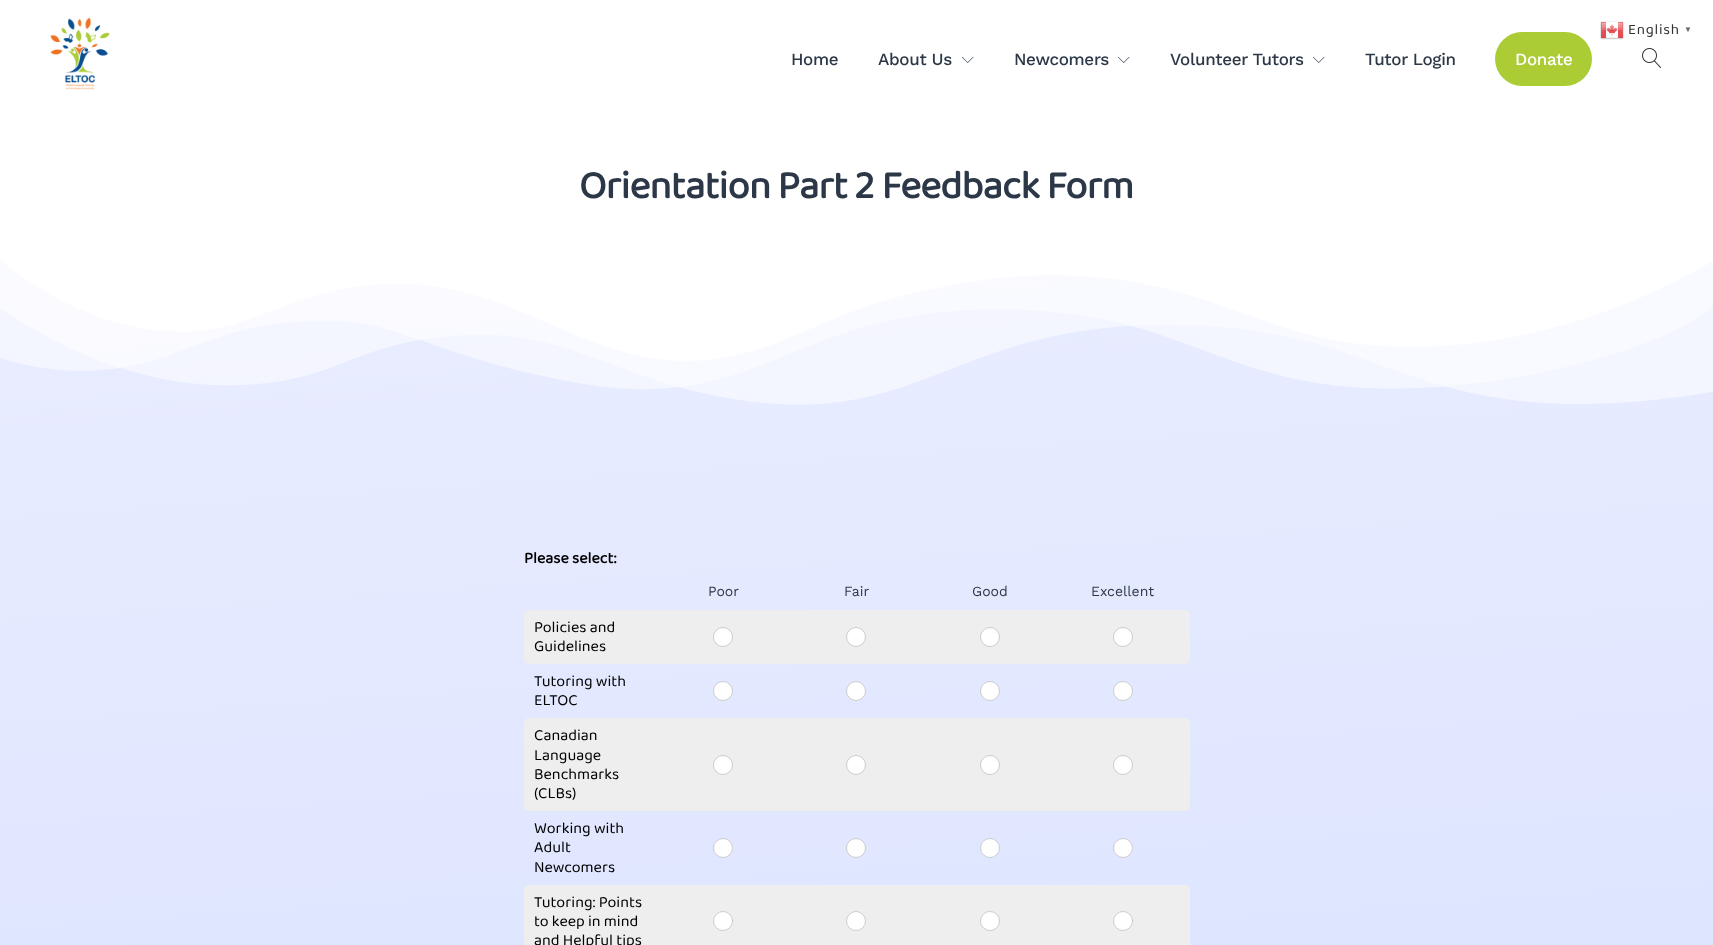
(async () => {
    const canvas = document.querySelector("canvas");
    canvas.width = 1713;
    canvas.height = 945;
    const context = canvas.getContext("2d");
    context.miterLimit = 4;
    context.fontKerning = "normal";
    function write(s, x, y, font, color) {
        context.font = font;
        context.fillStyle = color;
        context.fillText(s, x, y);
    }
    function block(x, y, w, h, color) {
        context.fillStyle = color;
        context.fillRect(x, y, w, h);
    }
    function card(x, y, w, h, r, color) {
        context.fillStyle = color;
        context.beginPath();
        context.roundRect(x, y, w, h, r);
        context.fill();
    }
    async function photo(src, x, y, w, h) {
        const img = new Image();
        img.src = src;
        await img.decode();
        context.drawImage(img, x, y, w, h);
    }
    let gradient;

    block(0, 0, 1713, 945, "rgb(255, 255, 255)");
    await photo("media/1.png", 1600, 21, 24, 19);
    context.letterSpacing = "0.75px";
    write("English", 1628, 34, "15px 'Baloo 2'", "rgb(51, 51, 51)");
    write("▼", 1684, 32, "bold 8px Liberation Serif", "rgb(102, 102, 102)");
    await photo("media/2.png", 50, 17, 60, 73);
    context.letterSpacing = "-0.3px";
    write("Home", 791, 65, "500 17px Work Sans", "rgb(44, 56, 71)");
    write("About Us", 878, 65, "500 17px Work Sans", "rgb(44, 56, 71)");
    await photo("media/3.png", 962, 56, 12, 7);
    write("Newcomers", 1014, 65, "500 17px Work Sans", "rgb(44, 56, 71)");
    await photo("media/3.png", 1118, 56, 12, 7);
    write("Volunteer Tutors", 1170, 65, "500 17px Work Sans", "rgb(44, 56, 71)");
    await photo("media/3.png", 1313, 56, 12, 7);
    write("Tutor Login", 1365, 65, "500 17px Work Sans", "rgb(44, 56, 71)");
    card(1495, 32, 97, 54, 27, "rgb(171, 204, 53)");
    write("Donate", 1515, 65, "500 17px Work Sans", "rgb(255, 255, 255)");
    await photo("media/4.png", 1642, 48, 19, 20);
    context.letterSpacing = "-0.7px";
    write("Orientation Part 2 Feedback Form", 579, 198, "bold 40px 'Baloo 2'", "rgb(44, 56, 71)");
    gradient = context.createLinearGradient(935, 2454, 778, 205);
    gradient.addColorStop(0, "rgb(199, 215, 255)");
    gradient.addColorStop(1, "rgb(234, 237, 255)");
    context.fillStyle = gradient;
    context.fillRect(0, 260, 1713, 685);
    await photo("media/5.png", 0, 259, 1713, 146);
    context.letterSpacing = "0px";
    write("Please select:", 524, 563, "bold 16px 'Baloo 2'", "rgb(0, 0, 0)");
    write("Poor", 708, 596, "14px Work Sans", "rgb(44, 56, 71)");
    write("Fair", 844, 596, "14px Work Sans", "rgb(44, 56, 71)");
    write("Good", 972, 596, "14px Work Sans", "rgb(44, 56, 71)");
    write("Excellent", 1091, 596, "14px Work Sans", "rgb(44, 56, 71)");
    context.fillStyle = "rgb(238, 238, 238)";
    context.beginPath();
    context.roundRect(524, 610, 133, 54, [5, 0, 0, 5]);
    context.fill();
    write("Policies and", 534, 632, "16px 'Baloo 2'", "rgb(0, 0, 0)");
    write("Guidelines", 534, 651, "16px 'Baloo 2'", "rgb(0, 0, 0)");
    block(657, 610, 399, 54, "rgb(238, 238, 238)");
    context.fillStyle = "rgb(255, 255, 255)";
    context.beginPath();
    context.arc(723, 637, 9.5, 0, Math.PI * 2);
    context.fill();
    context.strokeStyle = "rgb(204, 204, 204)";
    context.stroke();
    context.fillStyle = "rgb(238, 238, 238)";
    context.beginPath();
    context.roundRect(1056, 610, 134, 54, [0, 5, 5, 0]);
    context.fill();
    context.fillStyle = "rgb(255, 255, 255)";
    context.beginPath();
    context.arc(1123, 637, 9.5, 0, Math.PI * 2);
    context.fill();
    context.stroke();
    context.beginPath();
    context.arc(856, 637, 9.5, 0, Math.PI * 2);
    context.fill();
    context.stroke();
    context.beginPath();
    context.arc(990, 637, 9.5, 0, Math.PI * 2);
    context.fill();
    context.stroke();
    write("Tutoring with", 534, 686, "16px 'Baloo 2'", "rgb(0, 0, 0)");
    write("ELTOC", 534, 705, "16px 'Baloo 2'", "rgb(0, 0, 0)");
    context.fillStyle = "rgb(255, 255, 255)";
    context.beginPath();
    context.arc(723, 691, 9.5, 0, Math.PI * 2);
    context.fill();
    context.stroke();
    context.beginPath();
    context.arc(856, 691, 9.5, 0, Math.PI * 2);
    context.fill();
    context.stroke();
    context.beginPath();
    context.arc(990, 691, 9.5, 0, Math.PI * 2);
    context.fill();
    context.stroke();
    context.beginPath();
    context.arc(1123, 691, 9.5, 0, Math.PI * 2);
    context.fill();
    context.stroke();
    context.fillStyle = "rgb(238, 238, 238)";
    context.beginPath();
    context.roundRect(524, 718, 133, 93, [5, 0, 0, 5]);
    context.fill();
    write("Canadian", 534, 740, "16px 'Baloo 2'", "rgb(0, 0, 0)");
    write("Language", 534, 760, "16px 'Baloo 2'", "rgb(0, 0, 0)");
    write("Benchmarks", 534, 779, "16px 'Baloo 2'", "rgb(0, 0, 0)");
    write("(CLBs)", 534, 798, "16px 'Baloo 2'", "rgb(0, 0, 0)");
    block(657, 718, 399, 93, "rgb(238, 238, 238)");
    context.fillStyle = "rgb(255, 255, 255)";
    context.beginPath();
    context.arc(723, 765, 9.5, 0, Math.PI * 2);
    context.fill();
    context.stroke();
    context.fillStyle = "rgb(238, 238, 238)";
    context.beginPath();
    context.roundRect(1056, 718, 134, 93, [0, 5, 5, 0]);
    context.fill();
    context.fillStyle = "rgb(255, 255, 255)";
    context.beginPath();
    context.arc(1123, 765, 9.5, 0, Math.PI * 2);
    context.fill();
    context.stroke();
    context.beginPath();
    context.arc(856, 765, 9.5, 0, Math.PI * 2);
    context.fill();
    context.stroke();
    context.beginPath();
    context.arc(990, 765, 9.5, 0, Math.PI * 2);
    context.fill();
    context.stroke();
    write("Working with", 534, 833, "16px 'Baloo 2'", "rgb(0, 0, 0)");
    write("Adult", 534, 852, "16px 'Baloo 2'", "rgb(0, 0, 0)");
    write("Newcomers", 534, 872, "16px 'Baloo 2'", "rgb(0, 0, 0)");
    context.fillStyle = "rgb(255, 255, 255)";
    context.beginPath();
    context.arc(723, 848, 9.5, 0, Math.PI * 2);
    context.fill();
    context.stroke();
    context.beginPath();
    context.arc(856, 848, 9.5, 0, Math.PI * 2);
    context.fill();
    context.stroke();
    context.beginPath();
    context.arc(990, 848, 9.5, 0, Math.PI * 2);
    context.fill();
    context.stroke();
    context.beginPath();
    context.arc(1123, 848, 9.5, 0, Math.PI * 2);
    context.fill();
    context.stroke();
    context.fillStyle = "rgb(238, 238, 238)";
    context.beginPath();
    context.moveTo(529, 885);
    context.lineTo(657, 885);
    context.lineTo(657, 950);
    context.lineTo(529, 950);
    context.bezierCurveTo(526, 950, 524, 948, 524, 945);
    context.lineTo(524, 890);
    context.bezierCurveTo(524, 887, 526, 885, 529, 885);
    context.closePath();
    context.fill();
    write("Tutoring: Points", 534, 907, "16px 'Baloo 2'", "rgb(0, 0, 0)");
    write("to keep in mind", 534, 926, "16px 'Baloo 2'", "rgb(0, 0, 0)");
    write("and Helpful tips", 534, 945, "16px 'Baloo 2'", "rgb(0, 0, 0)");
    block(657, 885, 399, 60, "rgb(238, 238, 238)");
    context.fillStyle = "rgb(255, 255, 255)";
    context.beginPath();
    context.arc(723, 921, 9.5, 0, Math.PI * 2);
    context.fill();
    context.stroke();
    context.fillStyle = "rgb(238, 238, 238)";
    context.beginPath();
    context.moveTo(1056, 885);
    context.lineTo(1185, 885);
    context.bezierCurveTo(1188, 885, 1190, 887, 1190, 890);
    context.lineTo(1190, 945);
    context.bezierCurveTo(1190, 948, 1188, 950, 1185, 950);
    context.lineTo(1056, 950);
    context.closePath();
    context.fill();
    context.fillStyle = "rgb(255, 255, 255)";
    context.beginPath();
    context.arc(1123, 921, 9.5, 0, Math.PI * 2);
    context.fill();
    context.stroke();
    context.beginPath();
    context.arc(856, 921, 9.5, 0, Math.PI * 2);
    context.fill();
    context.stroke();
    context.beginPath();
    context.arc(990, 921, 9.5, 0, Math.PI * 2);
    context.fill();
    context.stroke();
})();
